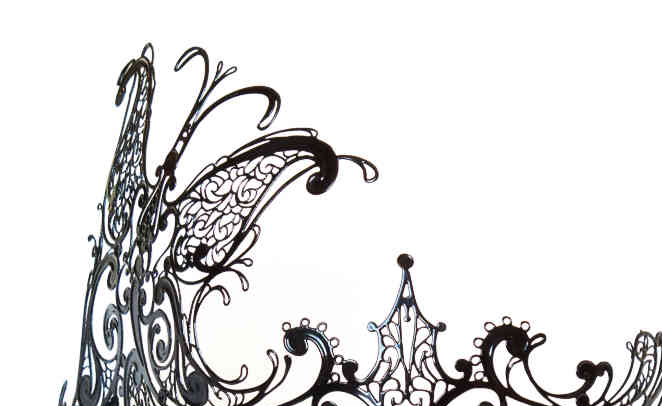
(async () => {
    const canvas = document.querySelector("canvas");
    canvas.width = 662;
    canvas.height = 406;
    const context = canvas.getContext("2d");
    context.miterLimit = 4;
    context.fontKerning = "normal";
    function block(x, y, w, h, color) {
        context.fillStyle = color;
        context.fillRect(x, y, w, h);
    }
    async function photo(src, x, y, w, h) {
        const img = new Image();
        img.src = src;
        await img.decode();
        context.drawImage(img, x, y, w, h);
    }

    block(0, 0, 662, 406, "rgb(255, 255, 255)");
    await photo("media/1.png", 0, 0, 662, 406);
})();
